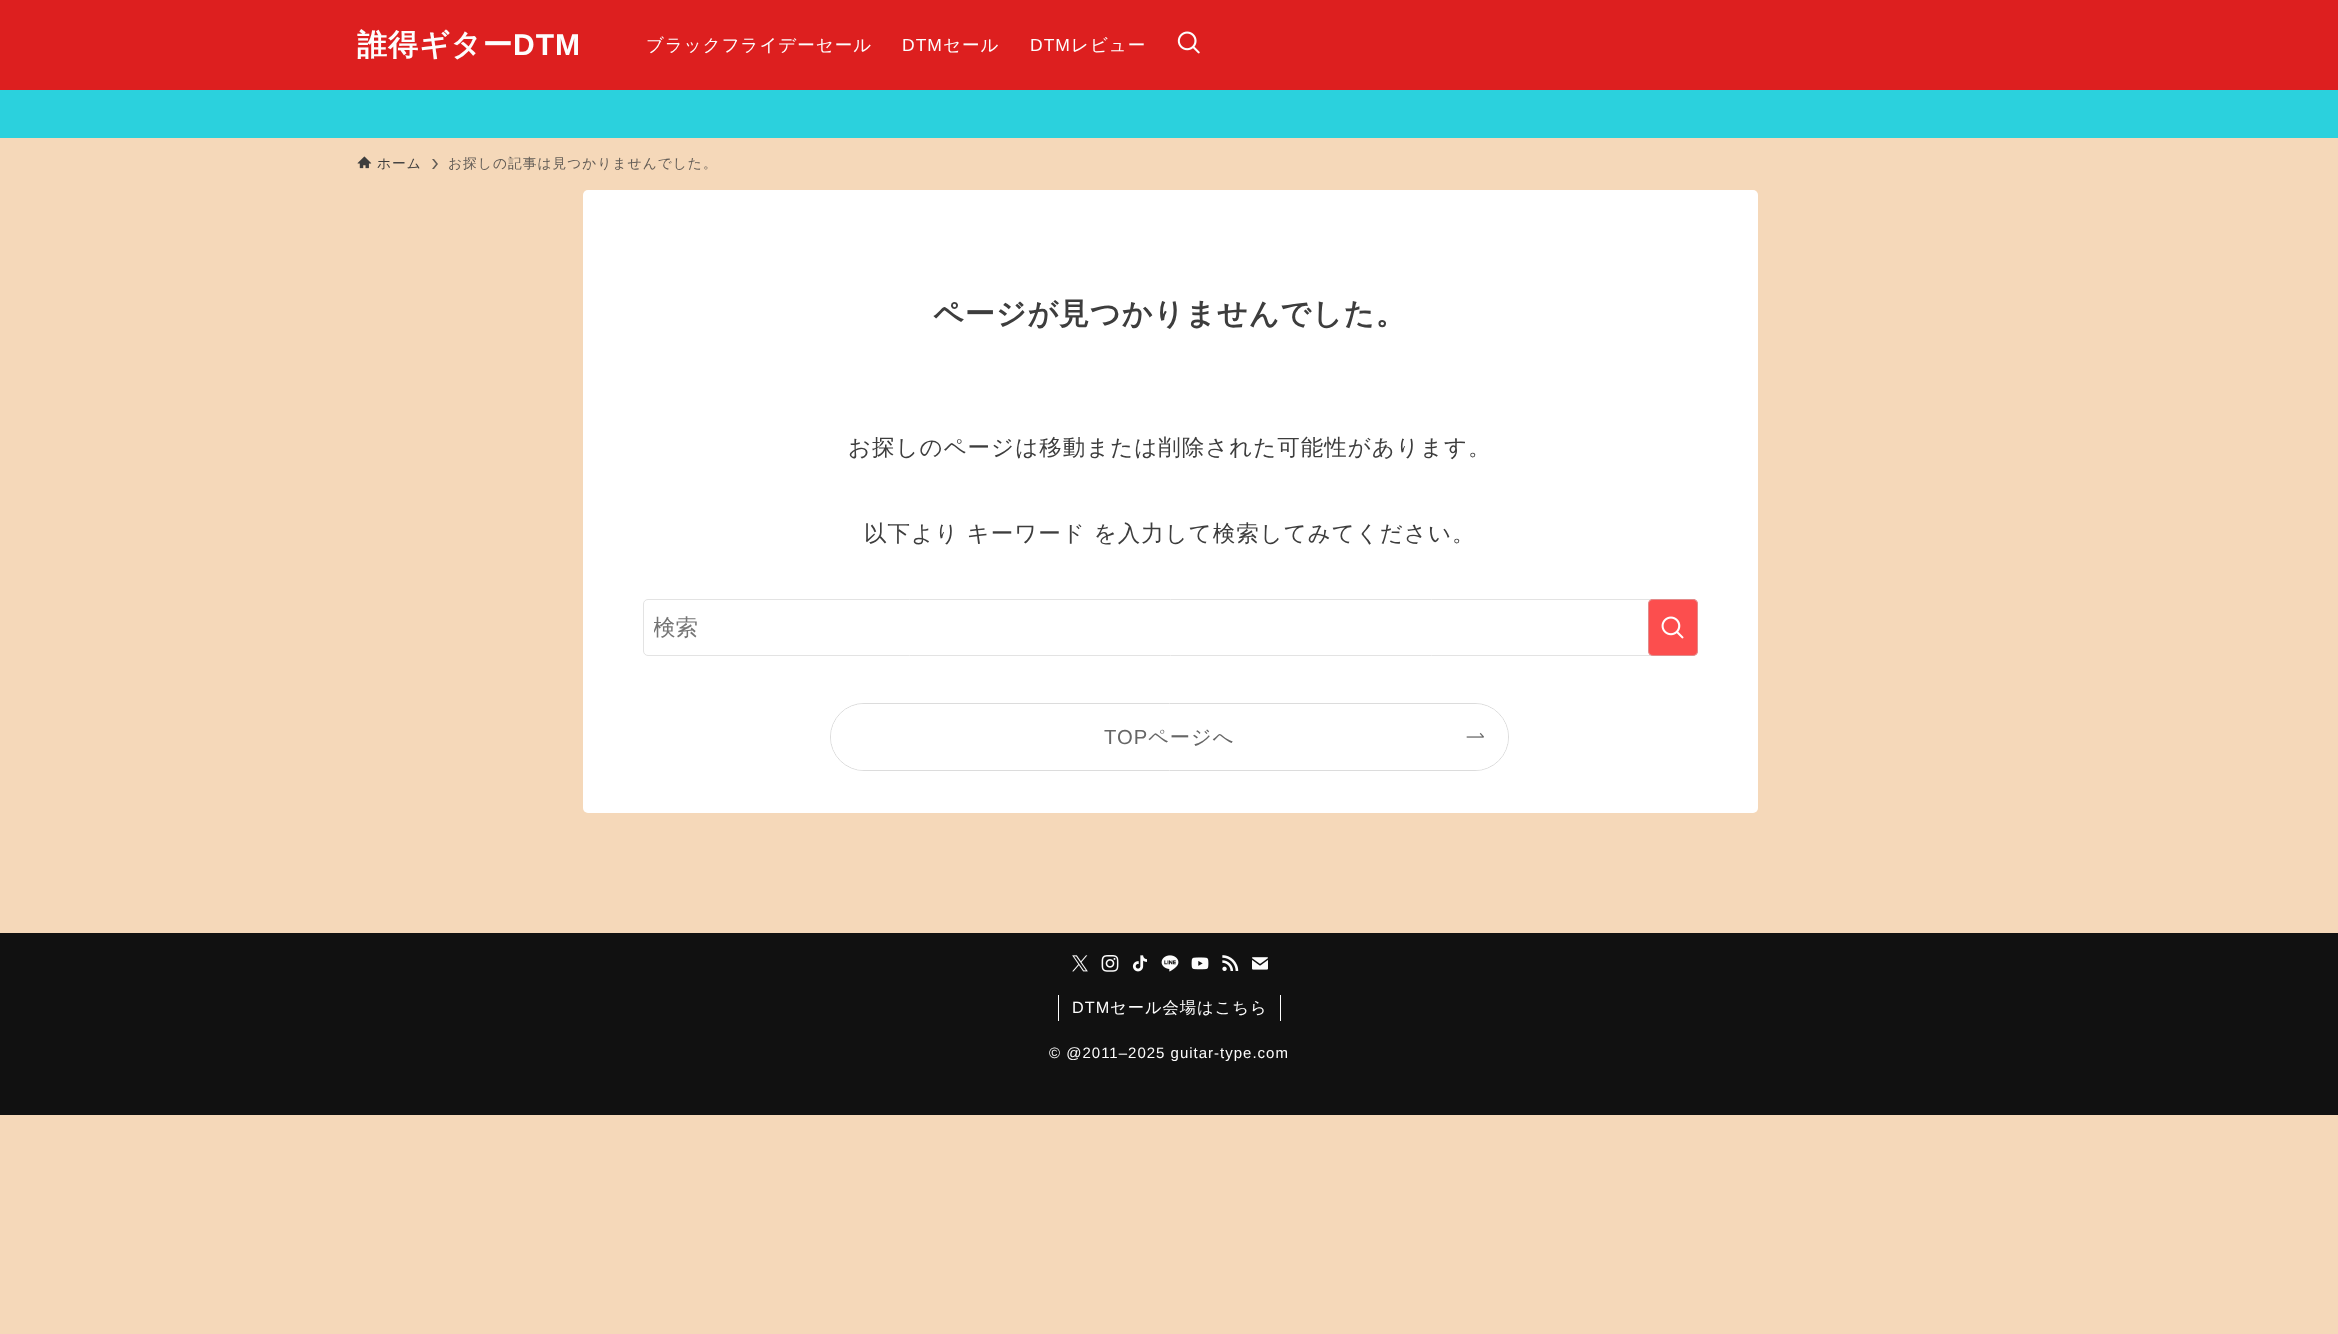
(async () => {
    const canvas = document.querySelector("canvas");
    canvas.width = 2338;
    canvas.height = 1334;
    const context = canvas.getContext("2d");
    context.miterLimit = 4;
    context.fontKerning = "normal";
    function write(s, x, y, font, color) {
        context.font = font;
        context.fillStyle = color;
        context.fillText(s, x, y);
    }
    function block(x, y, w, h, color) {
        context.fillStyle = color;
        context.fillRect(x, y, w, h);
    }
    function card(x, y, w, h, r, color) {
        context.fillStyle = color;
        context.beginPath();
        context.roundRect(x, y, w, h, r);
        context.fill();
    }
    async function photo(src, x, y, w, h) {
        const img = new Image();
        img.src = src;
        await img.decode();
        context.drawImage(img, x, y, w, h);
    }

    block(0, 0, 2338, 1334, "rgb(245, 216, 185)");
    block(0, 0, 2338, 90, "rgb(221, 31, 31)");
    context.letterSpacing = "1px";
    write("誰得ギター", 357, 55, "bold 30px WenQuanYi Zen Hei", "rgb(253, 253, 253)");
    write("DTM", 513, 55, "bold 30px Liberation Sans", "rgb(253, 253, 253)");
    write("ブラックフライデーセール", 646, 51, "500 17.5px WenQuanYi Zen Hei", "rgb(253, 253, 253)");
    write("DTM", 902, 51, "17.5px Liberation Sans", "rgb(253, 253, 253)");
    write("セール", 943, 51, "500 17.5px WenQuanYi Zen Hei", "rgb(253, 253, 253)");
    write("DTM", 1030, 51, "17.5px Liberation Sans", "rgb(253, 253, 253)");
    write("レビュー", 1071, 51, "500 17.5px WenQuanYi Zen Hei", "rgb(253, 253, 253)");
    await photo("media/1.png", 1177, 31, 23, 23);
    block(0, 90, 2338, 48, "rgb(43, 209, 221)");
    await photo("media/2.png", 357, 156, 15, 13);
    write("ホーム", 377, 168, "500 13.75px WenQuanYi Zen Hei", "rgb(61, 61, 61)");
    context.fillStyle = "rgb(98, 92, 86)";
    context.beginPath();
    context.moveTo(434, 159);
    context.lineTo(432, 159);
    context.lineTo(436, 164);
    context.lineTo(432, 169);
    context.lineTo(434, 169);
    context.lineTo(438, 164);
    context.closePath();
    context.fill();
    write("お探しの記事は見つかりませんでした。", 448, 168, "500 13.75px WenQuanYi Zen Hei", "rgb(98, 92, 86)");
    card(583, 190, 1175, 623, 5, "rgb(255, 255, 255)");
    write("ページが見つかりませんでした。", 933, 324, "bold 30px WenQuanYi Zen Hei", "rgb(61, 61, 61)");
    write("お探しのページは移動または削除された可能性があります。", 848, 455, "500 22.5px WenQuanYi Zen Hei", "rgb(61, 61, 61)");
    write("以下より キーワード を入力して検索してみてください。", 864, 541, "500 22.5px WenQuanYi Zen Hei", "rgb(61, 61, 61)");
    context.beginPath();
    context.roundRect(643.5, 599.5, 1054, 56, 4.5);
    context.strokeStyle = "rgb(227, 227, 227)";
    context.stroke();
    context.save();
    context.beginPath();
    context.rect(654, 613, 987, 30);
    context.clip();
    context.letterSpacing = "0px";
    write("検索", 653, 635, "500 22.5px WenQuanYi Zen Hei", "rgb(117, 117, 117)");
    context.restore();
    card(1648, 599, 50, 57, 5, "rgb(252, 78, 78)");
    context.beginPath();
    context.roundRect(1648.5, 599.5, 49, 56, 4.5);
    context.strokeStyle = "rgba(199, 199, 199, 0.5)";
    context.stroke();
    await photo("media/3.png", 1661, 616, 23, 23);
    context.beginPath();
    context.roundRect(830.5, 703.5, 678, 67, 33.5);
    context.strokeStyle = "rgb(220, 220, 220)";
    context.stroke();
    card(831, 704, 677, 66, 33, "rgb(255, 255, 255)");
    write("TOP", 1104, 744, "20.25px Liberation Sans", "rgb(102, 102, 102)");
    write("ページへ", 1148, 744, "500 20.25px WenQuanYi Zen Hei", "rgb(102, 102, 102)");
    await photo("media/4.png", 1466, 732, 18, 6);
    block(0, 933, 2338, 182, "rgb(17, 17, 17)");
    await photo("media/5.png", 1072, 955, 16, 17);
    await photo("media/6.png", 1101, 955, 18, 17);
    await photo("media/7.png", 1132, 955, 15, 17);
    await photo("media/8.png", 1161, 955, 18, 17);
    await photo("media/9.png", 1191, 957, 18, 13);
    await photo("media/10.png", 1222, 955, 17, 16);
    await photo("media/11.png", 1252, 957, 16, 13);
    block(1280, 995, 1, 26, "rgb(253, 253, 253)");
    block(1058, 995, 1, 26, "rgb(253, 253, 253)");
    write("DTM", 1072, 1013, "16.25px Liberation Sans", "rgb(253, 253, 253)");
    write("セール会場はこちら", 1110, 1013, "500 16.25px WenQuanYi Zen Hei", "rgb(253, 253, 253)");
    write("© @2011–2025 guitar-type.com", 1049, 1058, "15px Liberation Sans", "rgb(253, 253, 253)");
})();
